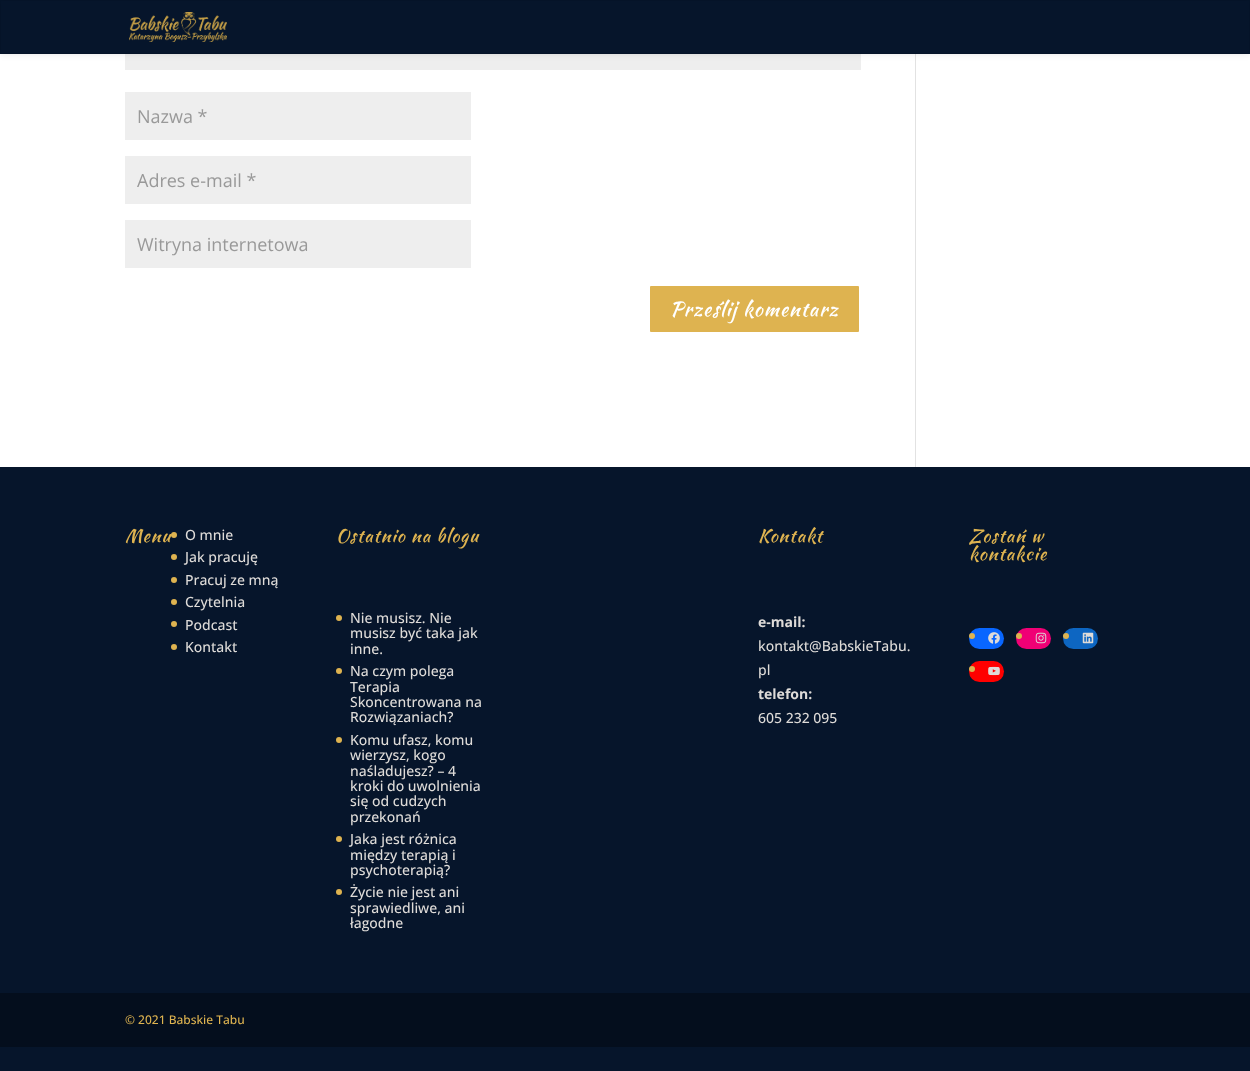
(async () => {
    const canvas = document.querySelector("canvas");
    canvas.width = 1250;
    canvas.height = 1071;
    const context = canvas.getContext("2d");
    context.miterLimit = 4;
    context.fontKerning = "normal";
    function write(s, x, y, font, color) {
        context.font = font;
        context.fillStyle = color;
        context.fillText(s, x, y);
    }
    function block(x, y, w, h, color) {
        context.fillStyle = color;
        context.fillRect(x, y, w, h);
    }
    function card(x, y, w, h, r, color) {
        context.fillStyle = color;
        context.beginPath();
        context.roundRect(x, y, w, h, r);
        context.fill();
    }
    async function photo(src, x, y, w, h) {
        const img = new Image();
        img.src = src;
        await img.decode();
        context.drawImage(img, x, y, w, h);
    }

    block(0, 0, 1250, 1071, "rgb(6, 21, 43)");
    block(0, 54, 1250, 413, "rgb(255, 255, 255)");
    block(125, 54, 736, 16, "rgb(238, 238, 238)");
    block(915, 54, 1, 413, "rgb(226, 226, 226)");
    context.fillStyle = "rgba(0, 0, 0, 0.1)";
    context.filter = "blur(3.5px)";
    context.beginPath();
    context.rect(0, 0, 1250, 54);
    context.fill();
    context.filter = "none";
    block(1, 1, 1248, 52, "rgb(6, 21, 43)");
    await photo("media/1.png", 129, 12, 98, 30);
    block(125, 92, 346, 48, "rgb(238, 238, 238)");
    write("Nazwa *", 137, 123, "18px Open Sans", "rgb(153, 153, 153)");
    block(125, 156, 346, 48, "rgb(238, 238, 238)");
    write("Adres e-mail *", 137, 187, "18px Open Sans", "rgb(153, 153, 153)");
    block(125, 220, 346, 48, "rgb(238, 238, 238)");
    write("Witryna internetowa", 137, 251, "18px Open Sans", "rgb(153, 153, 153)");
    context.fillStyle = "rgb(222, 179, 80)";
    context.beginPath();
    context.roundRect(649, 285, 211, 48, 2);
    context.fill();
    context.strokeStyle = "rgb(255, 255, 255)";
    context.lineWidth = 2;
    context.stroke();
    context.letterSpacing = "1px";
    write("Prześlij komentarz", 670, 316, "20px Kaushan Script", "rgb(255, 255, 255)");
    write("Menu", 125, 542, "18px Kaushan Script", "rgb(222, 179, 80)");
    context.beginPath();
    context.arc(174, 535, 3, 0, Math.PI * 2);
    context.fill();
    context.letterSpacing = "0px";
    write("O mnie", 185, 540, "500 14px Open Sans", "rgb(222, 219, 216)");
    context.fillStyle = "rgb(222, 179, 80)";
    context.beginPath();
    context.arc(174, 557, 3, 0, Math.PI * 2);
    context.fill();
    write("Jak pracuję", 185, 562, "500 14px Open Sans", "rgb(222, 219, 216)");
    context.fillStyle = "rgb(222, 179, 80)";
    context.beginPath();
    context.arc(174, 580, 3, 0, Math.PI * 2);
    context.fill();
    write("Pracuj ze mną", 185, 585, "500 14px Open Sans", "rgb(222, 219, 216)");
    context.fillStyle = "rgb(222, 179, 80)";
    context.beginPath();
    context.arc(174, 602, 3, 0, Math.PI * 2);
    context.fill();
    write("Czytelnia", 185, 607, "500 14px Open Sans", "rgb(222, 219, 216)");
    context.fillStyle = "rgb(222, 179, 80)";
    context.beginPath();
    context.arc(174, 624, 3, 0, Math.PI * 2);
    context.fill();
    write("Podcast", 185, 630, "500 14px Open Sans", "rgb(222, 219, 216)");
    context.fillStyle = "rgb(222, 179, 80)";
    context.beginPath();
    context.arc(174, 647, 3, 0, Math.PI * 2);
    context.fill();
    write("Kontakt", 185, 652, "500 14px Open Sans", "rgb(222, 219, 216)");
    context.letterSpacing = "1px";
    write("Ostatnio na blogu", 336, 542, "18px Kaushan Script", "rgb(222, 179, 80)");
    context.beginPath();
    context.arc(339, 618, 3, 0, Math.PI * 2);
    context.fill();
    context.letterSpacing = "0px";
    write("Nie musisz. Nie", 350, 623, "500 14px Open Sans", "rgb(222, 219, 216)");
    write("musisz być taka jak", 350, 638, "500 14px Open Sans", "rgb(222, 219, 216)");
    write("inne.", 350, 654, "500 14px Open Sans", "rgb(222, 219, 216)");
    context.fillStyle = "rgb(222, 179, 80)";
    context.beginPath();
    context.arc(339, 671, 3, 0, Math.PI * 2);
    context.fill();
    write("Na czym polega", 350, 676, "500 14px Open Sans", "rgb(222, 219, 216)");
    write("Terapia", 350, 692, "500 14px Open Sans", "rgb(222, 219, 216)");
    write("Skoncentrowana na", 350, 707, "500 14px Open Sans", "rgb(222, 219, 216)");
    write("Rozwiązaniach?", 350, 722, "500 14px Open Sans", "rgb(222, 219, 216)");
    context.fillStyle = "rgb(222, 179, 80)";
    context.beginPath();
    context.arc(339, 740, 3, 0, Math.PI * 2);
    context.fill();
    write("Komu ufasz, komu", 350, 745, "500 14px Open Sans", "rgb(222, 219, 216)");
    write("wierzysz, kogo", 350, 760, "500 14px Open Sans", "rgb(222, 219, 216)");
    write("naśladujesz? – 4", 350, 776, "500 14px Open Sans", "rgb(222, 219, 216)");
    write("kroki do uwolnienia", 350, 791, "500 14px Open Sans", "rgb(222, 219, 216)");
    write("się od cudzych", 350, 806, "500 14px Open Sans", "rgb(222, 219, 216)");
    write("przekonań", 350, 822, "500 14px Open Sans", "rgb(222, 219, 216)");
    context.fillStyle = "rgb(222, 179, 80)";
    context.beginPath();
    context.arc(339, 839, 3, 0, Math.PI * 2);
    context.fill();
    write("Jaka jest różnica", 350, 844, "500 14px Open Sans", "rgb(222, 219, 216)");
    write("między terapią i", 350, 860, "500 14px Open Sans", "rgb(222, 219, 216)");
    write("psychoterapią?", 350, 875, "500 14px Open Sans", "rgb(222, 219, 216)");
    context.fillStyle = "rgb(222, 179, 80)";
    context.beginPath();
    context.arc(339, 892, 3, 0, Math.PI * 2);
    context.fill();
    write("Życie nie jest ani", 350, 897, "500 14px Open Sans", "rgb(222, 219, 216)");
    write("sprawiedliwe, ani", 350, 913, "500 14px Open Sans", "rgb(222, 219, 216)");
    write("łagodne", 350, 928, "500 14px Open Sans", "rgb(222, 219, 216)");
    context.letterSpacing = "1px";
    write("Kontakt", 758, 542, "18px Kaushan Script", "rgb(222, 179, 80)");
    context.letterSpacing = "0px";
    write("e-mail:", 758, 627, "bold 14px Open Sans", "rgb(222, 219, 216)");
    write("kontakt@BabskieTabu.", 758, 651, "500 14px Open Sans", "rgb(222, 219, 216)");
    write("pl", 758, 675, "500 14px Open Sans", "rgb(222, 219, 216)");
    write("telefon:", 758, 699, "bold 14px Open Sans", "rgb(222, 219, 216)");
    write("605 232 095", 758, 723, "500 14px Open Sans", "rgb(222, 219, 216)");
    context.letterSpacing = "1px";
    write("Zostań w", 969, 542, "18px Kaushan Script", "rgb(222, 179, 80)");
    write("kontakcie", 969, 560, "18px Kaushan Script", "rgb(222, 179, 80)");
    card(969, 628, 35, 21, 10.5, "rgb(8, 102, 255)");
    context.fillStyle = "rgb(222, 179, 80)";
    context.beginPath();
    context.arc(972, 636, 3, 0, Math.PI * 2);
    context.fill();
    await photo("media/2.png", 988, 632, 12, 12);
    card(1016, 628, 35, 21, 10.5, "rgb(240, 0, 117)");
    context.fillStyle = "rgb(222, 179, 80)";
    context.beginPath();
    context.arc(1019, 636, 3, 0, Math.PI * 2);
    context.fill();
    await photo("media/3.png", 1035, 632, 12, 12);
    card(1063, 628, 35, 21, 10.5, "rgb(13, 102, 194)");
    context.fillStyle = "rgb(222, 179, 80)";
    context.beginPath();
    context.arc(1066, 636, 3, 0, Math.PI * 2);
    context.fill();
    await photo("media/4.png", 1082, 632, 12, 12);
    card(969, 661, 35, 21, 10.5, "rgb(255, 0, 0)");
    context.fillStyle = "rgb(222, 179, 80)";
    context.beginPath();
    context.arc(972, 669, 3, 0, Math.PI * 2);
    context.fill();
    await photo("media/5.png", 988, 666, 12, 10);
    block(0, 993, 1250, 54, "rgb(4, 14, 29)");
    context.letterSpacing = "0px";
    write("© 2021 Babskie Tabu", 125, 1024, "500 12px Open Sans", "rgb(222, 179, 80)");
})();
